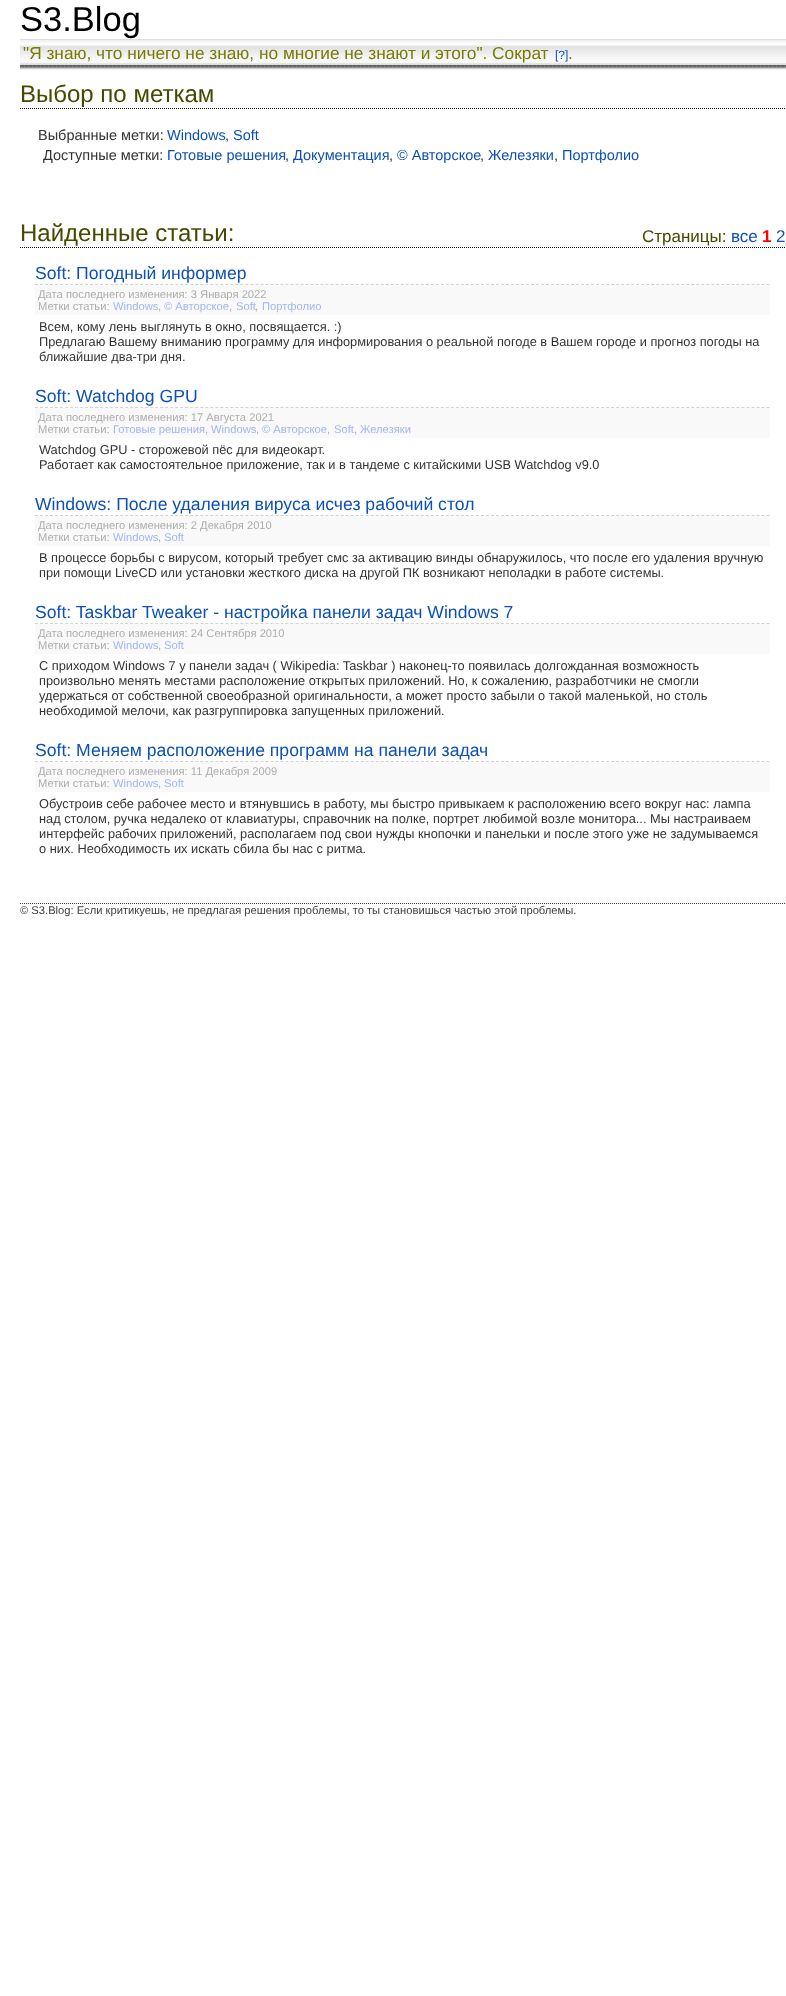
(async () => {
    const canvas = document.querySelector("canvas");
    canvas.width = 786;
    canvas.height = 1996;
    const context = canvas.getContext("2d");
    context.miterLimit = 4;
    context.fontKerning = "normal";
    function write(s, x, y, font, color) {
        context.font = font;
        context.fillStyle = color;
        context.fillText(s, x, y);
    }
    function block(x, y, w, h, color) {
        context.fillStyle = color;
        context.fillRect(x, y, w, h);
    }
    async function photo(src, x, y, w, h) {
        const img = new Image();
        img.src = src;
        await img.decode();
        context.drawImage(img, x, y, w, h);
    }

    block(0, 0, 786, 1996, "rgb(255, 255, 255)");
    write("S3.Blog", 20, 31, "34.5px Liberation Sans", "rgb(0, 0, 0)");
    block(20, 69, 766, 1, "rgb(243, 243, 243)");
    await photo("media/1.png", 20, 39, 766, 30);
    write("\"Я знаю, что ничего не знаю, но многие не знают и этого\". Сократ", 23, 59, "17.3px Liberation Sans", "rgb(118, 124, 1)");
    write("[?]", 555, 59, "12px Liberation Sans", "rgb(12, 80, 182)");
    write(".", 568, 59, "17.3px Liberation Sans", "rgb(118, 124, 1)");
    context.beginPath();
    context.moveTo(20, 108.5);
    context.lineTo(785, 108.5);
    context.strokeStyle = "rgb(0, 0, 0)";
    context.setLineDash([1, 1]);
    context.stroke();
    write("Выбор по меткам", 20, 102, "24px Liberation Sans", "rgb(70, 73, 1)");
    write("Выбранные метки:", 38, 140, "14.5px Liberation Sans", "rgb(51, 51, 51)");
    write("Windows", 167, 140, "14.5px Liberation Sans", "rgb(12, 80, 182)");
    write(",", 225, 140, "14.5px Liberation Sans", "rgb(51, 51, 51)");
    write("Soft", 233, 140, "14.5px Liberation Sans", "rgb(12, 80, 182)");
    write("Доступные метки:", 43, 160, "14.5px Liberation Sans", "rgb(51, 51, 51)");
    write("Готовые решения", 167, 160, "14.5px Liberation Sans", "rgb(12, 80, 182)");
    write(",", 285, 160, "14.5px Liberation Sans", "rgb(51, 51, 51)");
    write("Документация", 293, 160, "14.5px Liberation Sans", "rgb(12, 80, 182)");
    write(",", 389, 160, "14.5px Liberation Sans", "rgb(51, 51, 51)");
    write("© Авторское", 397, 160, "14.5px Liberation Sans", "rgb(12, 80, 182)");
    write(",", 480, 160, "14.5px Liberation Sans", "rgb(51, 51, 51)");
    write("Железяки", 488, 160, "14.5px Liberation Sans", "rgb(12, 80, 182)");
    write(",", 554, 160, "14.5px Liberation Sans", "rgb(51, 51, 51)");
    write("Портфолио", 562, 160, "14.5px Liberation Sans", "rgb(12, 80, 182)");
    context.beginPath();
    context.moveTo(20, 247.5);
    context.lineTo(785, 247.5);
    context.stroke();
    write("Найденные статьи:", 20, 241, "24px Liberation Sans", "rgb(70, 73, 1)");
    write("Страницы:", 642, 242, "17px Liberation Sans", "rgb(70, 73, 1)");
    write("все", 731, 242, "17px Liberation Sans", "rgb(12, 80, 182)");
    write("1", 762, 242, "bold 17px Liberation Sans", "rgb(255, 0, 0)");
    write("2", 776, 242, "17px Liberation Sans", "rgb(12, 80, 182)");
    context.beginPath();
    context.moveTo(35, 284.5);
    context.lineTo(770, 284.5);
    context.strokeStyle = "rgb(210, 210, 210)";
    context.setLineDash([3, 2.01]);
    context.stroke();
    write("Soft: Погодный информер", 35, 279, "17.6px Liberation Sans", "rgb(12, 80, 182)");
    block(35, 285, 735, 30, "rgb(249, 249, 249)");
    write("Дата последнего изменения: 3 Января 2022", 38, 298, "11.2px Liberation Sans", "rgb(174, 174, 174)");
    write("Метки статьи:", 38, 310, "11.2px Liberation Sans", "rgb(174, 174, 174)");
    write("Windows", 113, 310, "11.2px Liberation Sans", "rgb(159, 183, 244)");
    write(",", 158, 310, "11.2px Liberation Sans", "rgb(174, 174, 174)");
    write("© Авторское", 164, 310, "11.2px Liberation Sans", "rgb(159, 183, 244)");
    write(",", 229, 310, "11.2px Liberation Sans", "rgb(174, 174, 174)");
    write("Soft", 236, 310, "11.2px Liberation Sans", "rgb(159, 183, 244)");
    write(",", 255, 310, "11.2px Liberation Sans", "rgb(174, 174, 174)");
    write("Портфолио", 262, 310, "11.2px Liberation Sans", "rgb(159, 183, 244)");
    write("Всем, кому лень выглянуть в окно, посвящается. :)", 39, 331, "12.8px Liberation Sans", "rgb(51, 51, 51)");
    write("Предлагаю Вашему вниманию программу для информирования о реальной погоде в Вашем городе и прогноз погоды на", 39, 346, "12.8px Liberation Sans", "rgb(51, 51, 51)");
    write("ближайшие два-три дня.", 39, 361, "12.8px Liberation Sans", "rgb(51, 51, 51)");
    context.beginPath();
    context.moveTo(35, 407.5);
    context.lineTo(770, 407.5);
    context.stroke();
    write("Soft: Watchdog GPU", 35, 402, "17.6px Liberation Sans", "rgb(12, 80, 182)");
    block(35, 408, 735, 30, "rgb(249, 249, 249)");
    write("Дата последнего изменения: 17 Августа 2021", 38, 421, "11.2px Liberation Sans", "rgb(174, 174, 174)");
    write("Метки статьи:", 38, 433, "11.2px Liberation Sans", "rgb(174, 174, 174)");
    write("Готовые решения", 113, 433, "11.2px Liberation Sans", "rgb(159, 183, 244)");
    write(",", 205, 433, "11.2px Liberation Sans", "rgb(174, 174, 174)");
    write("Windows", 211, 433, "11.2px Liberation Sans", "rgb(159, 183, 244)");
    write(",", 256, 433, "11.2px Liberation Sans", "rgb(174, 174, 174)");
    write("© Авторское", 262, 433, "11.2px Liberation Sans", "rgb(159, 183, 244)");
    write(",", 327, 433, "11.2px Liberation Sans", "rgb(174, 174, 174)");
    write("Soft", 334, 433, "11.2px Liberation Sans", "rgb(159, 183, 244)");
    write(",", 354, 433, "11.2px Liberation Sans", "rgb(174, 174, 174)");
    write("Железяки", 360, 433, "11.2px Liberation Sans", "rgb(159, 183, 244)");
    write("Watchdog GPU - сторожевой пёс для видеокарт.", 39, 454, "12.8px Liberation Sans", "rgb(51, 51, 51)");
    write("Работает как самостоятельное приложение, так и в тандеме с китайскими USB Watchdog v9.0", 39, 469, "12.8px Liberation Sans", "rgb(51, 51, 51)");
    context.beginPath();
    context.moveTo(35, 515.5);
    context.lineTo(770, 515.5);
    context.stroke();
    write("Windows: После удаления вируса исчез рабочий стол", 35, 510, "17.6px Liberation Sans", "rgb(12, 80, 182)");
    block(35, 516, 735, 30, "rgb(249, 249, 249)");
    write("Дата последнего изменения: 2 Декабря 2010", 38, 529, "11.2px Liberation Sans", "rgb(174, 174, 174)");
    write("Метки статьи:", 38, 541, "11.2px Liberation Sans", "rgb(174, 174, 174)");
    write("Windows", 113, 541, "11.2px Liberation Sans", "rgb(159, 183, 244)");
    write(",", 158, 541, "11.2px Liberation Sans", "rgb(174, 174, 174)");
    write("Soft", 164, 541, "11.2px Liberation Sans", "rgb(159, 183, 244)");
    write("В процессе борьбы с вирусом, который требует смс за активацию винды обнаружилось, что после его удаления вручную", 39, 562, "12.8px Liberation Sans", "rgb(51, 51, 51)");
    write("при помощи LiveCD или установки жесткого диска на другой ПК возникают неполадки в работе системы.", 39, 577, "12.8px Liberation Sans", "rgb(51, 51, 51)");
    context.beginPath();
    context.moveTo(35, 623.5);
    context.lineTo(770, 623.5);
    context.stroke();
    write("Soft: Taskbar Tweaker - настройка панели задач Windows 7", 35, 618, "17.6px Liberation Sans", "rgb(12, 80, 182)");
    block(35, 624, 735, 30, "rgb(249, 249, 249)");
    write("Дата последнего изменения: 24 Сентября 2010", 38, 637, "11.2px Liberation Sans", "rgb(174, 174, 174)");
    write("Метки статьи:", 38, 649, "11.2px Liberation Sans", "rgb(174, 174, 174)");
    write("Windows", 113, 649, "11.2px Liberation Sans", "rgb(159, 183, 244)");
    write(",", 158, 649, "11.2px Liberation Sans", "rgb(174, 174, 174)");
    write("Soft", 164, 649, "11.2px Liberation Sans", "rgb(159, 183, 244)");
    write("С приходом Windows 7 у панели задач ( Wikipedia: Taskbar ) наконец-то появилась долгожданная возможность", 39, 670, "12.8px Liberation Sans", "rgb(51, 51, 51)");
    write("произвольно менять местами расположение открытых приложений. Но, к сожалению, разработчики не смогли", 39, 685, "12.8px Liberation Sans", "rgb(51, 51, 51)");
    write("удержаться от собственной своеобразной оригинальности, а может просто забыли о такой маленькой, но столь", 39, 700, "12.8px Liberation Sans", "rgb(51, 51, 51)");
    write("необходимой мелочи, как разгруппировка запущенных приложений.", 39, 715, "12.8px Liberation Sans", "rgb(51, 51, 51)");
    context.beginPath();
    context.moveTo(35, 761.5);
    context.lineTo(770, 761.5);
    context.stroke();
    write("Soft: Меняем расположение программ на панели задач", 35, 756, "17.6px Liberation Sans", "rgb(12, 80, 182)");
    block(35, 762, 735, 30, "rgb(249, 249, 249)");
    write("Дата последнего изменения: 11 Декабря 2009", 38, 775, "11.2px Liberation Sans", "rgb(174, 174, 174)");
    write("Метки статьи:", 38, 787, "11.2px Liberation Sans", "rgb(174, 174, 174)");
    write("Windows", 113, 787, "11.2px Liberation Sans", "rgb(159, 183, 244)");
    write(",", 158, 787, "11.2px Liberation Sans", "rgb(174, 174, 174)");
    write("Soft", 164, 787, "11.2px Liberation Sans", "rgb(159, 183, 244)");
    write("Обустроив себе рабочее место и втянувшись в работу, мы быстро привыкаем к расположению всего вокруг нас: лампа", 39, 808, "12.8px Liberation Sans", "rgb(51, 51, 51)");
    write("над столом, ручка недалеко от клавиатуры, справочник на полке, портрет любимой возле монитора... Мы настраиваем", 39, 823, "12.8px Liberation Sans", "rgb(51, 51, 51)");
    write("интерфейс рабочих приложений, располагаем под свои нужды кнопочки и панельки и после этого уже не задумываемся", 39, 838, "12.8px Liberation Sans", "rgb(51, 51, 51)");
    write("о них. Необходимость их искать сбила бы нас с ритма.", 39, 853, "12.8px Liberation Sans", "rgb(51, 51, 51)");
    context.beginPath();
    context.moveTo(20, 903.5);
    context.lineTo(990, 903.5);
    context.strokeStyle = "rgb(64, 64, 64)";
    context.setLineDash([1, 1]);
    context.stroke();
    write("© S3.Blog: Если критикуешь, не предлагая решения проблемы, то ты становишься частью этой проблемы.", 20, 914, "11.2px Liberation Sans", "rgb(64, 64, 64)");
})();
